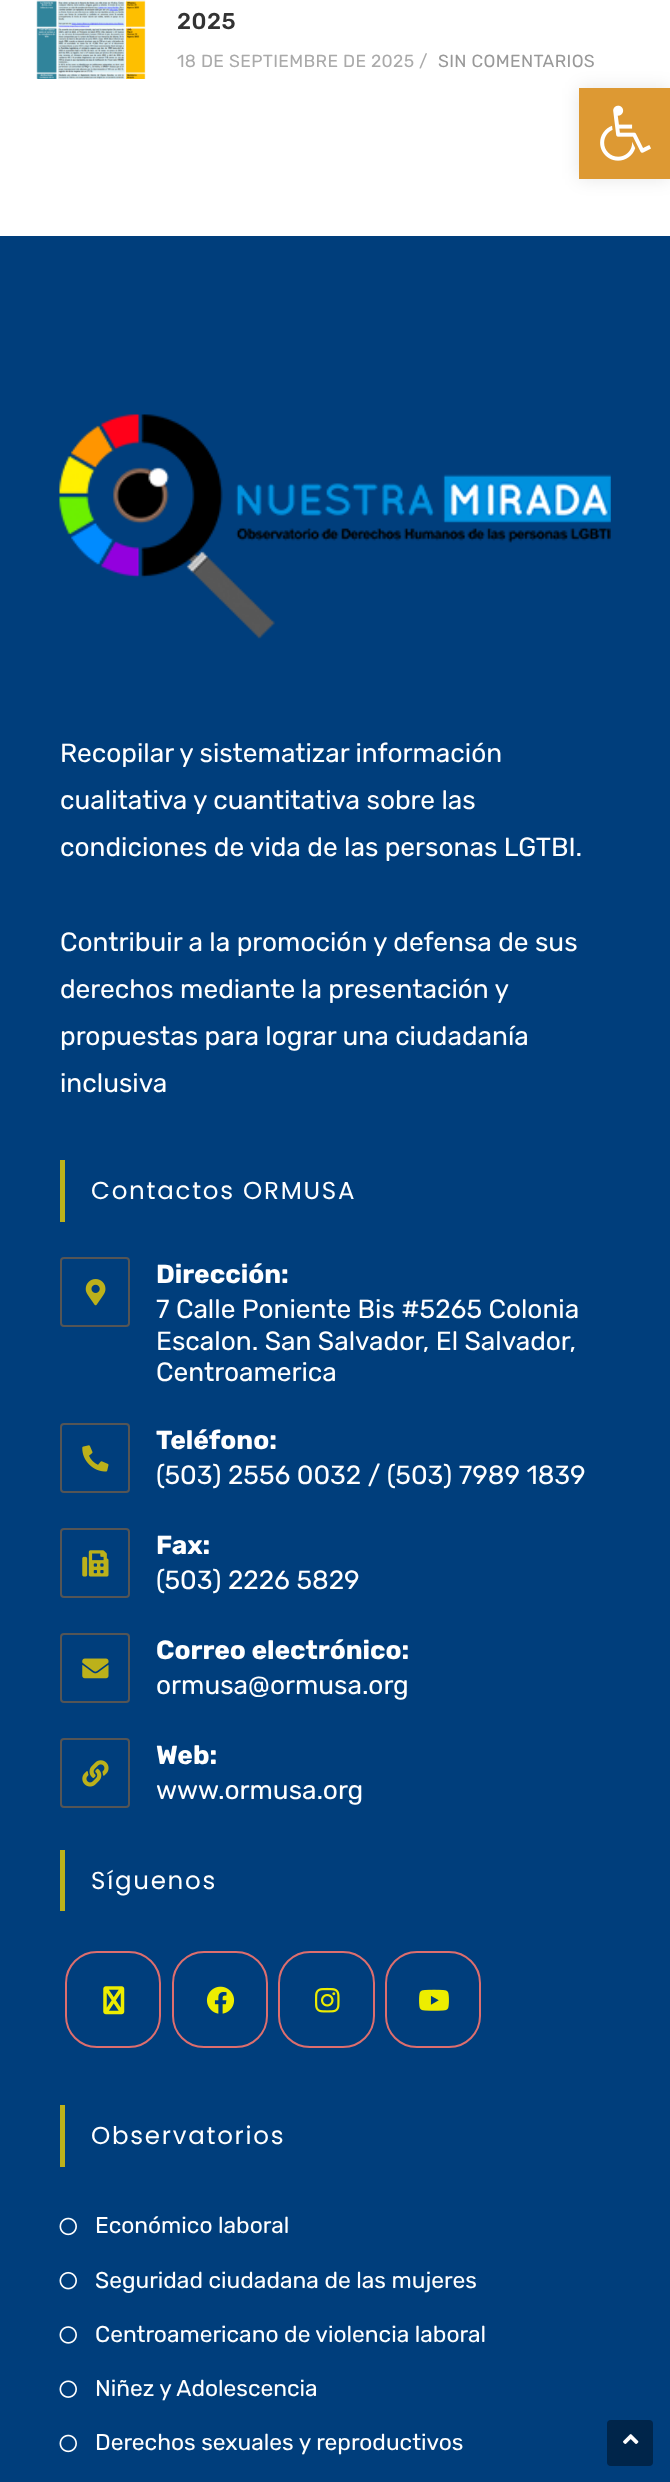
(async () => {
    const canvas = document.querySelector("canvas");
    canvas.width = 670;
    canvas.height = 2482;
    const context = canvas.getContext("2d");
    context.miterLimit = 4;
    context.fontKerning = "normal";
    function write(s, x, y, font, color) {
        context.font = font;
        context.fillStyle = color;
        context.fillText(s, x, y);
    }
    function block(x, y, w, h, color) {
        context.fillStyle = color;
        context.fillRect(x, y, w, h);
    }
    function card(x, y, w, h, r, color) {
        context.fillStyle = color;
        context.beginPath();
        context.roundRect(x, y, w, h, r);
        context.fill();
    }
    async function photo(src, x, y, w, h) {
        const img = new Image();
        img.src = src;
        await img.decode();
        context.drawImage(img, x, y, w, h);
    }

    block(0, 0, 670, 2482, "rgb(255, 255, 255)");
    await photo("media/1.png", 36, 0, 110, 79);
    context.letterSpacing = "0.5px";
    write("2025", 177, 29, "500 22.75px Rubik", "rgb(51, 51, 51)");
    context.letterSpacing = "0.35px";
    write("18 DE SEPTIEMBRE DE 2025", 177, 67, "17.5px Rubik", "rgb(170, 170, 170)");
    write("/", 419, 67, "17.5px Rubik", "rgb(170, 170, 170)");
    write("SIN COMENTARIOS", 438, 67, "17.5px Rubik", "rgb(153, 153, 153)");
    block(0, 236, 670, 2246, "rgb(0, 62, 124)");
    await photo("media/2.png", 59, 414, 552, 225);
    context.letterSpacing = "0px";
    write("Recopilar y sistematizar información", 60, 762, "26.25px Rubik", "rgb(255, 255, 255)");
    write("cualitativa y cuantitativa sobre las", 60, 809, "26.25px Rubik", "rgb(255, 255, 255)");
    write("condiciones de vida de las personas LGTBI.", 60, 856, "26.25px Rubik", "rgb(255, 255, 255)");
    write("Contribuir a la promoción y defensa de sus", 60, 951, "26.25px Rubik", "rgb(255, 255, 255)");
    write("derechos mediante", 60, 998, "26.25px Rubik", "rgb(255, 255, 255)");
    write("la presentación y", 301, 998, "26.25px Rubik", "rgb(255, 255, 255)");
    write("propuestas para lograr una ciudadanía", 60, 1045, "26.25px Rubik", "rgb(255, 255, 255)");
    write("inclusiva", 60, 1092, "26.25px Rubik", "rgb(255, 255, 255)");
    block(60, 1160, 5, 62, "rgb(188, 177, 26)");
    context.letterSpacing = "1.75px";
    write("Contactos ORMUSA", 91, 1199, "24.5px Poppins", "rgb(255, 255, 255)");
    context.beginPath();
    context.roundRect(61, 1258, 68, 68, 3);
    context.strokeStyle = "rgb(85, 85, 85)";
    context.lineWidth = 2;
    context.stroke();
    await photo("media/3.png", 85, 1279, 21, 27);
    context.letterSpacing = "0px";
    write("Dirección:", 156, 1283, "bold 26.25px Rubik", "rgb(255, 255, 255)");
    write("7 Calle Poniente Bis #5265 Colonia", 156, 1318, "26.25px Rubik", "rgb(255, 255, 255)");
    write("Escalon. San Salvador, El Salvador,", 156, 1350, "26.25px Rubik", "rgb(255, 255, 255)");
    write("Centroamerica", 156, 1381, "26.25px Rubik", "rgb(255, 255, 255)");
    context.beginPath();
    context.roundRect(61, 1424, 68, 68, 3);
    context.stroke();
    await photo("media/4.png", 82, 1445, 27, 27);
    write("Teléfono:", 156, 1449, "bold 26.25px Rubik", "rgb(255, 255, 255)");
    write("(503) 2556 0032 / (503) 7989 1839", 156, 1484, "26.25px Rubik", "rgb(255, 255, 255)");
    context.beginPath();
    context.roundRect(61, 1529, 68, 68, 3);
    context.stroke();
    await photo("media/5.png", 82, 1550, 27, 27);
    write("Fax:", 156, 1554, "bold 26.25px Rubik", "rgb(255, 255, 255)");
    write("(503) 2226 5829", 156, 1589, "26.25px Rubik", "rgb(255, 255, 255)");
    context.beginPath();
    context.roundRect(61, 1634, 68, 68, 3);
    context.stroke();
    await photo("media/6.png", 82, 1658, 27, 21);
    write("Correo electrónico:", 156, 1659, "bold 26.25px Rubik", "rgb(255, 255, 255)");
    write("ormusa@ormusa.org", 156, 1694, "26.25px Rubik", "rgb(255, 255, 255)");
    context.beginPath();
    context.roundRect(61, 1739, 68, 68, 3);
    context.stroke();
    await photo("media/7.png", 82, 1760, 27, 27);
    write("Web:", 156, 1764, "bold 26.25px Rubik", "rgb(255, 255, 255)");
    write("www.ormusa.org", 156, 1799, "26.25px Rubik", "rgb(255, 255, 255)");
    block(60, 1850, 5, 61, "rgb(188, 177, 26)");
    context.letterSpacing = "1.75px";
    write("Síguenos", 91, 1889, "24.5px Poppins", "rgb(255, 255, 255)");
    context.beginPath();
    context.roundRect(66, 1952, 94, 95, 31);
    context.strokeStyle = "rgb(221, 110, 110)";
    context.stroke();
    await photo("media/8.png", 103, 1986, 22, 29);
    context.beginPath();
    context.roundRect(173, 1952, 94, 95, 31);
    context.stroke();
    await photo("media/9.png", 206, 1986, 29, 28);
    context.beginPath();
    context.roundRect(279, 1952, 95, 95, 31);
    context.stroke();
    await photo("media/10.png", 315, 1987, 25, 26);
    context.beginPath();
    context.roundRect(386, 1952, 94, 95, 31);
    context.stroke();
    await photo("media/11.png", 419, 1989, 30, 22);
    block(60, 2105, 5, 62, "rgb(188, 177, 26)");
    write("Observatorios", 91, 2144, "24.5px Poppins", "rgb(255, 255, 255)");
    await photo("media/12.png", 59, 2217, 18, 19);
    context.letterSpacing = "0px";
    write("Económico laboral", 95, 2233, "22.75px Rubik", "rgb(255, 255, 255)");
    await photo("media/13.png", 59, 2271, 18, 19);
    write("Seguridad ciudadana de las mujeres", 95, 2288, "22.75px Rubik", "rgb(255, 255, 255)");
    await photo("media/14.png", 59, 2326, 18, 18);
    write("Centroamericano de violencia laboral", 95, 2342, "22.75px Rubik", "rgb(255, 255, 255)");
    await photo("media/15.png", 59, 2380, 18, 18);
    write("Niñez y Adolescencia", 95, 2396, "22.75px Rubik", "rgb(255, 255, 255)");
    await photo("media/12.png", 59, 2434, 18, 19);
    write("Derechos sexuales y reproductivos", 95, 2450, "22.75px Rubik", "rgb(255, 255, 255)");
    context.fillStyle = "rgba(0, 0, 0, 0.1)";
    context.filter = "blur(9px)";
    context.beginPath();
    context.rect(579, 88, 91, 91);
    context.fill();
    context.filter = "none";
    block(579, 88, 91, 91, "rgb(221, 153, 51)");
    await photo("media/16.png", 600, 105, 51, 56);
    card(607, 2420, 46, 46, 4, "rgb(0, 37, 74)");
    await photo("media/17.png", 623, 2434, 16, 10);
})();
